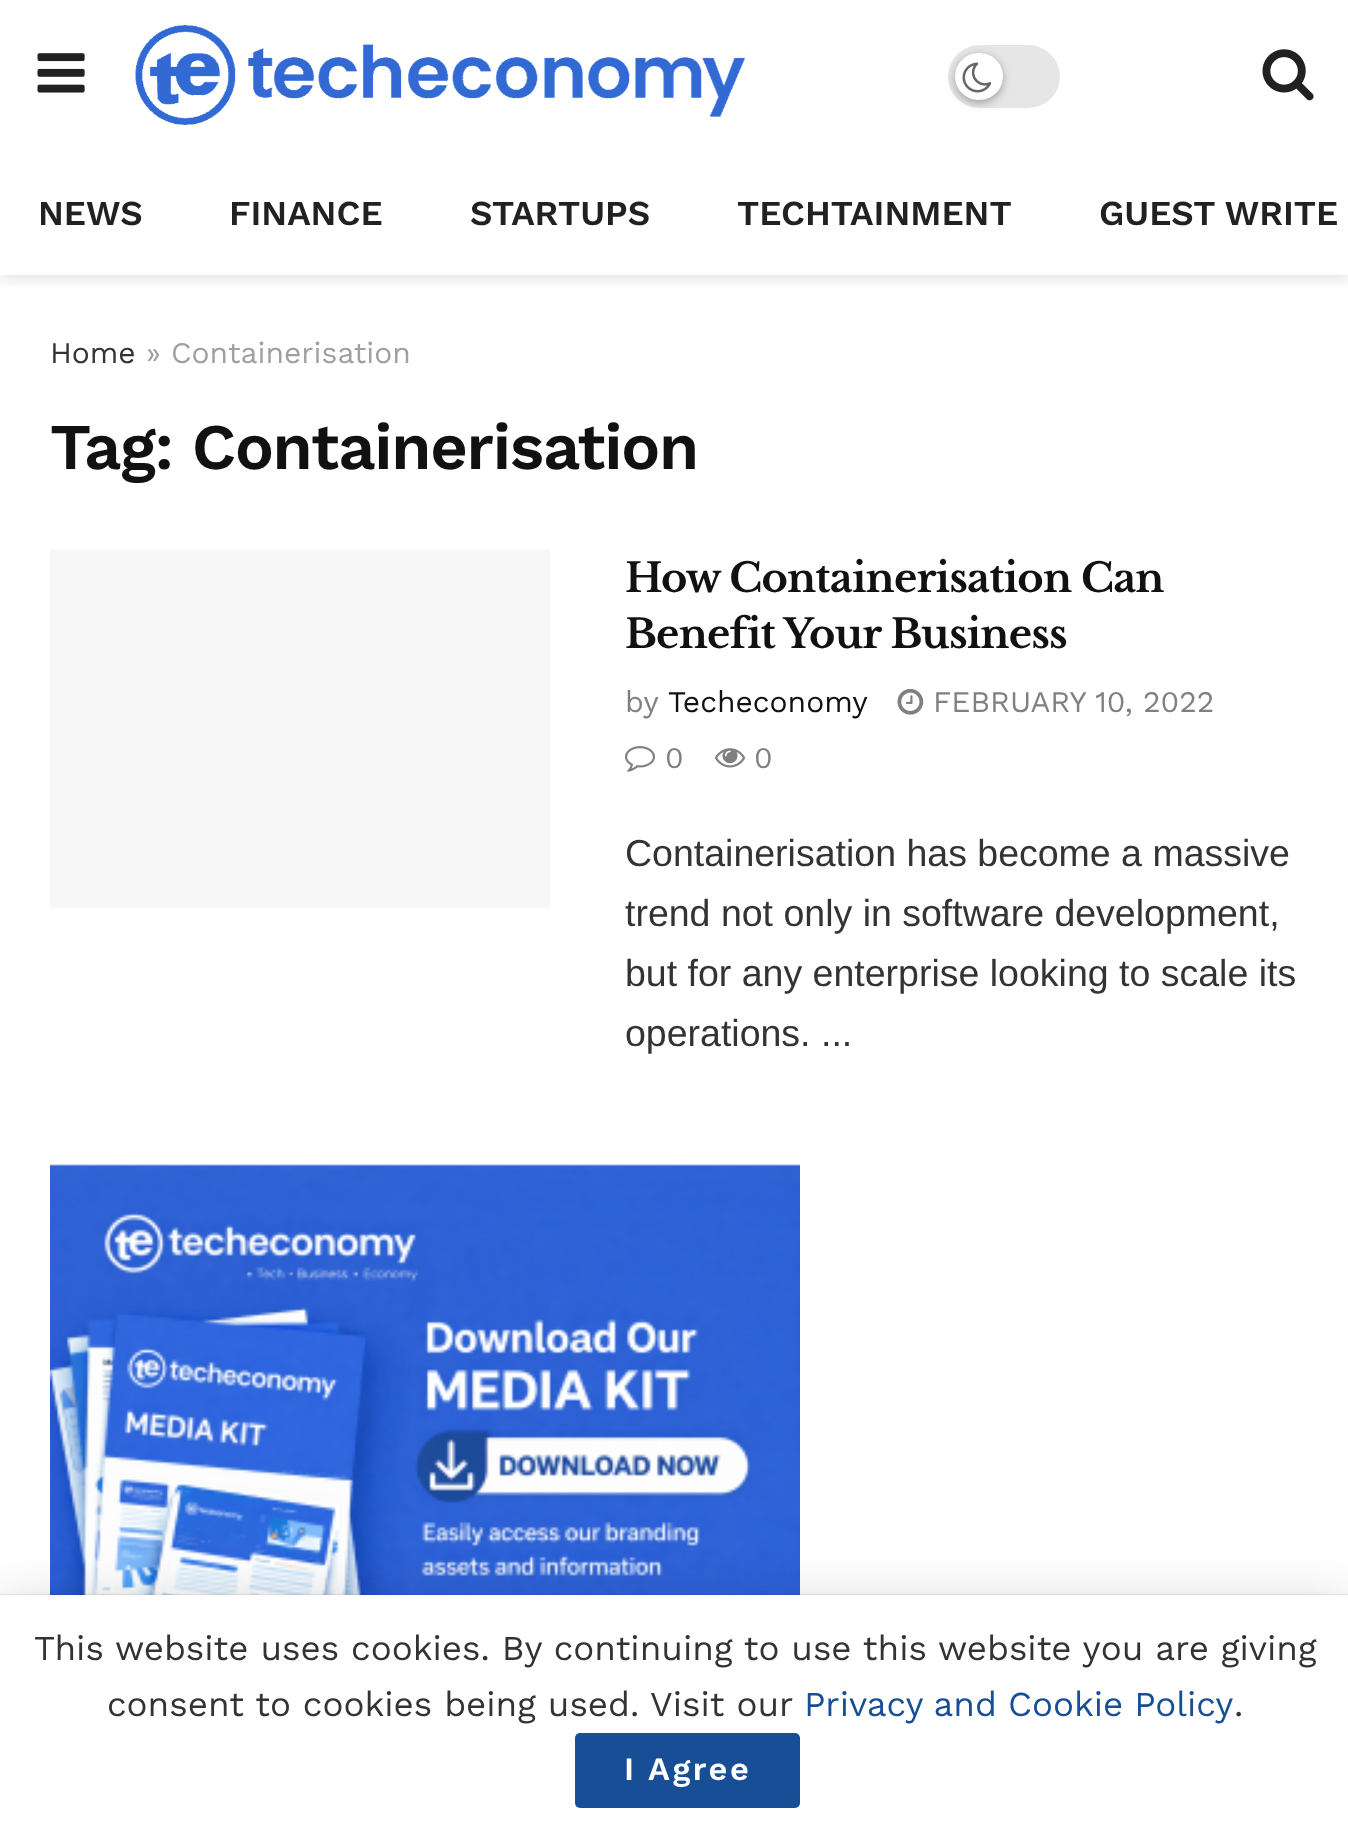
(async () => {
    const canvas = document.querySelector("canvas");
    canvas.width = 1348;
    canvas.height = 1832;
    const context = canvas.getContext("2d");
    context.miterLimit = 4;
    context.fontKerning = "normal";
    function write(s, x, y, font, color) {
        context.font = font;
        context.fillStyle = color;
        context.fillText(s, x, y);
    }
    function block(x, y, w, h, color) {
        context.fillStyle = color;
        context.fillRect(x, y, w, h);
    }
    function card(x, y, w, h, r, color) {
        context.fillStyle = color;
        context.beginPath();
        context.roundRect(x, y, w, h, r);
        context.fill();
    }
    async function photo(src, x, y, w, h) {
        const img = new Image();
        img.src = src;
        await img.decode();
        context.drawImage(img, x, y, w, h);
    }

    block(0, 0, 1348, 1832, "rgb(255, 255, 255)");
    context.save();
    context.beginPath();
    context.rect(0, 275, 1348, 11);
    context.clip();
    context.fillStyle = "rgba(0, 0, 0, 0.1)";
    context.filter = "blur(7.5px)";
    context.beginPath();
    context.rect(0, 5, 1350, 275);
    context.fill();
    context.filter = "none";
    context.restore();
    await photo("media/1.png", 37, 53, 48, 40);
    await photo("media/2.png", 135, 25, 610, 100);
    card(948, 45, 112, 63, 31.5, "rgb(230, 230, 230)");
    context.fillStyle = "rgba(0, 0, 0, 0.3)";
    context.filter = "blur(4px)";
    context.beginPath();
    context.roundRect(955, 55, 48, 48, 24);
    context.fill();
    context.filter = "none";
    card(955, 53, 48, 47, 23.5, "rgb(255, 255, 255)");
    await photo("media/3.png", 962, 62, 30, 31);
    await photo("media/4.png", 1262, 49, 52, 52);
    write("NEWS", 38, 225, "600 35px Work Sans", "rgb(33, 33, 33)");
    write("FINANCE", 229, 225, "600 35px Work Sans", "rgb(33, 33, 33)");
    write("STARTUPS", 470, 225, "600 35px Work Sans", "rgb(33, 33, 33)");
    write("TECHTAINMENT", 737, 225, "600 35px Work Sans", "rgb(33, 33, 33)");
    write("GUEST WRITE", 1099, 225, "600 35px Work Sans", "rgb(33, 33, 33)");
    write("Home", 50, 363, "30px Work Sans", "rgb(51, 51, 51)");
    write("» Containerisation", 146, 363, "30px Work Sans", "rgb(160, 160, 160)");
    context.letterSpacing = "-1.3px";
    write("Tag: Containerisation", 50, 469, "600 65px Work Sans", "rgb(17, 17, 17)");
    block(50, 550, 500, 358, "rgb(247, 247, 247)");
    context.letterSpacing = "-0.8px";
    write("How Containerisation Can", 625, 592, "bold 40px Libre Baskerville", "rgb(17, 17, 17)");
    write("Benefit Your Business", 625, 648, "bold 40px Libre Baskerville", "rgb(17, 17, 17)");
    context.letterSpacing = "0px";
    write("by", 625, 712, "30px Work Sans", "rgb(128, 128, 128)");
    write("Techeconomy", 668, 712, "30px Work Sans", "rgb(17, 17, 17)");
    await photo("media/5.png", 897, 688, 27, 27);
    write("FEBRUARY 10, 2022", 933, 712, "30px Work Sans", "rgb(128, 128, 128)");
    await photo("media/6.png", 625, 746, 30, 26);
    write("0", 665, 768, "30px Work Sans", "rgb(128, 128, 128)");
    await photo("media/7.png", 715, 748, 30, 20);
    write("0", 754, 768, "30px Work Sans", "rgb(128, 128, 128)");
    write("Containerisation has become a massive", 625, 866, "37.5px Liberation Sans", "rgb(51, 51, 51)");
    write("trend not only in software development,", 625, 926, "37.5px Liberation Sans", "rgb(51, 51, 51)");
    write("but for any enterprise looking to scale its", 625, 986, "37.5px Liberation Sans", "rgb(51, 51, 51)");
    write("operations. ...", 625, 1046, "37.5px Liberation Sans", "rgb(51, 51, 51)");
    await photo("media/8.png", 50, 1164, 750, 431);
    context.fillStyle = "rgba(0, 0, 0, 0.15)";
    context.filter = "blur(25px)";
    context.beginPath();
    context.rect(0, 1600, 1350, 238);
    context.fill();
    context.filter = "none";
    context.fillStyle = "rgba(0, 0, 0, 0.2)";
    context.filter = "blur(1px)";
    context.beginPath();
    context.rect(0, 1595, 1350, 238);
    context.fill();
    context.filter = "none";
    block(0, 1595, 1348, 237, "rgb(255, 255, 255)");
    write("This website uses cookies. By continuing to use this website you are giving", 34, 1660, "35px Work Sans", "rgb(51, 51, 51)");
    write("consent to cookies being used. Visit our", 107, 1716, "35px Work Sans", "rgb(51, 51, 51)");
    context.wordSpacing = "-1px";
    write("Privacy and Cookie Policy", 804, 1716, "35px Work Sans", "rgb(23, 78, 150)");
    context.wordSpacing = "0px";
    write(".", 1234, 1716, "35px Work Sans", "rgb(51, 51, 51)");
    card(575, 1733, 225, 75, 5, "rgb(23, 78, 150)");
    context.letterSpacing = "2.5px";
    write("I Agree", 624, 1780, "600 32.5px Work Sans", "rgb(255, 255, 255)");
})();
